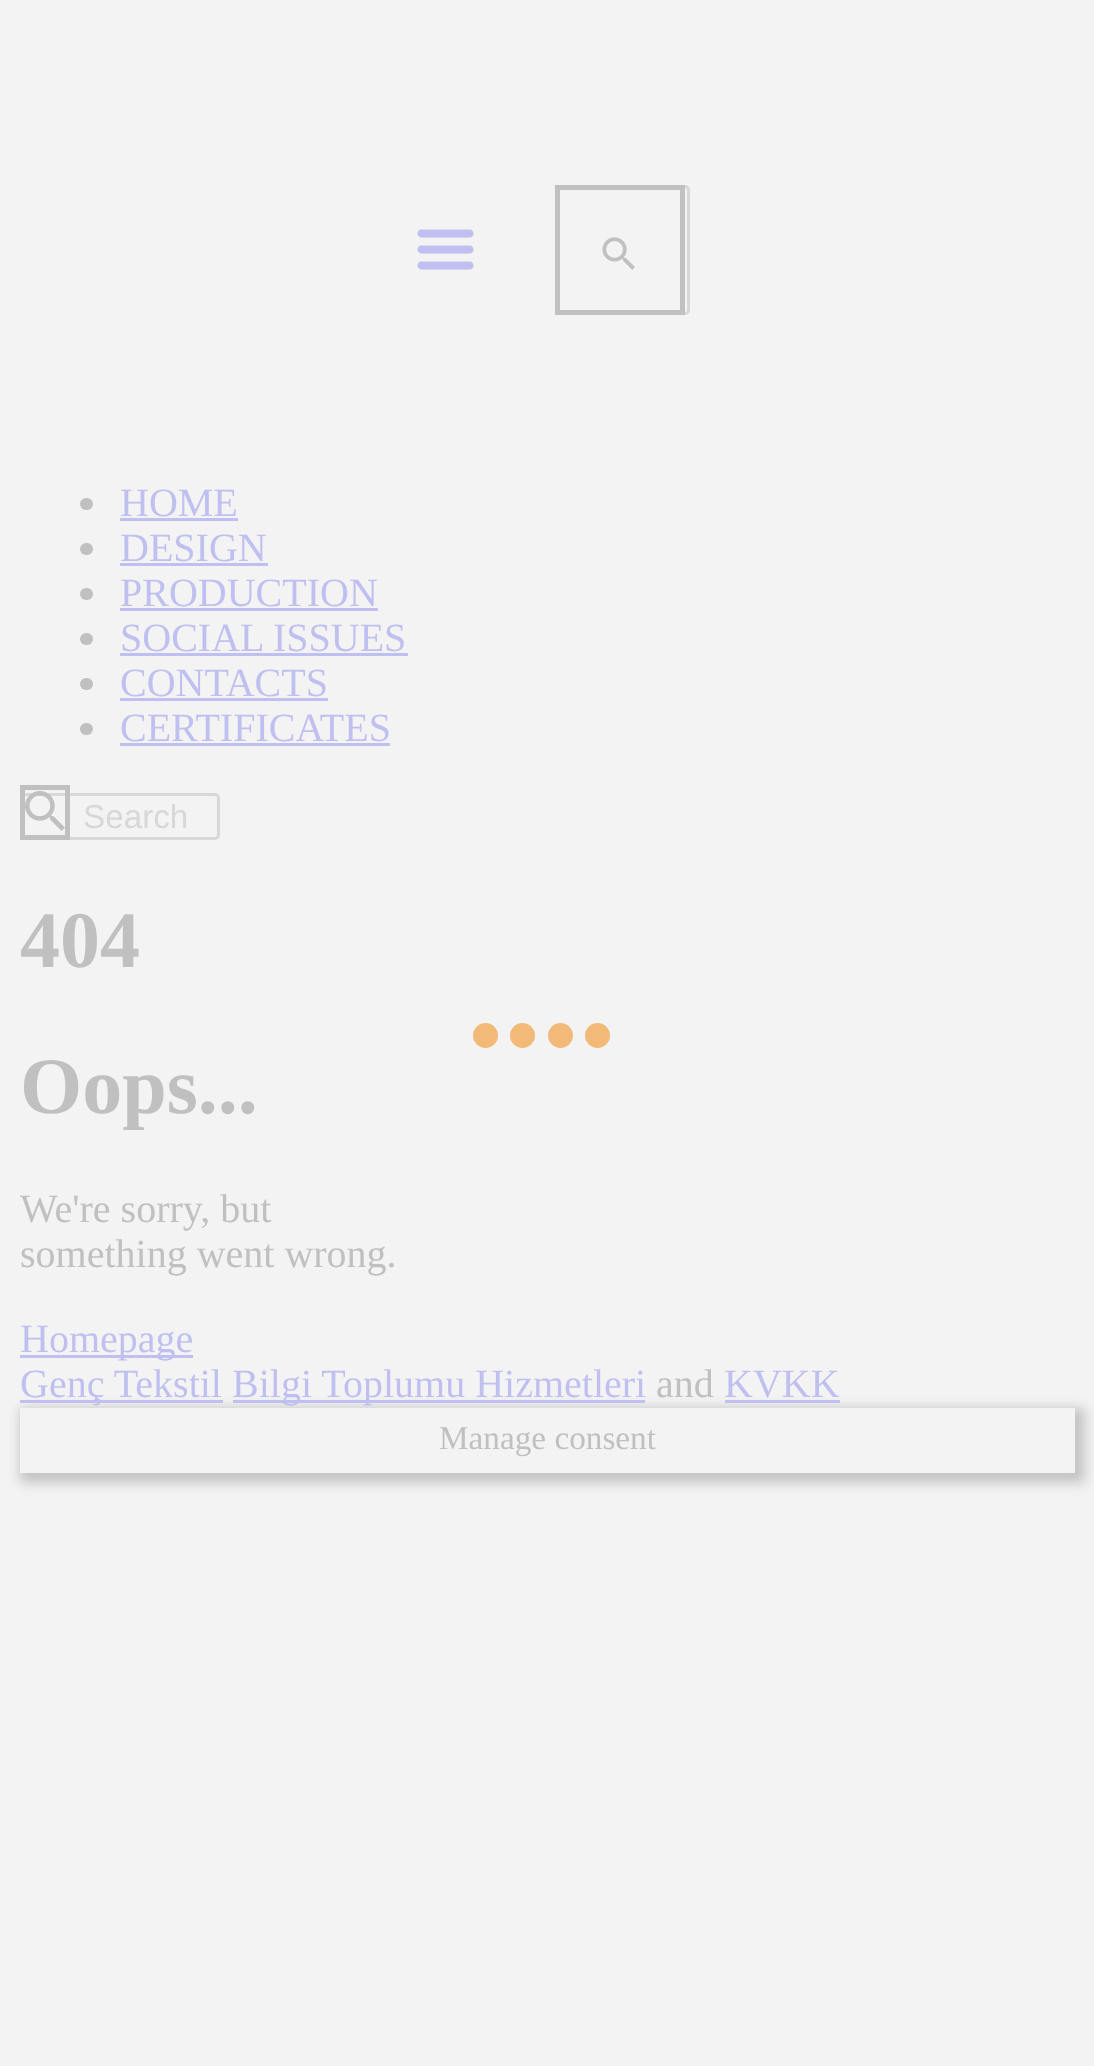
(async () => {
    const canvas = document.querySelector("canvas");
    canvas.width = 1094;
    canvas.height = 2066;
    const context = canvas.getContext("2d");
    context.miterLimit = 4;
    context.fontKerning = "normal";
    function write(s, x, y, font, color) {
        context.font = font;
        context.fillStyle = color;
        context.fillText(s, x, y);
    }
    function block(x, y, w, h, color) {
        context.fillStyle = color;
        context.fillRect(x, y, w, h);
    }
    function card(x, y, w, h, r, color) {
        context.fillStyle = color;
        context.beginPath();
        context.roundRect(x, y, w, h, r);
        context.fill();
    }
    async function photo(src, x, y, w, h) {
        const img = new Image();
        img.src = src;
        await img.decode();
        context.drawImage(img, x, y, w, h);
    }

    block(0, 0, 1094, 2066, "rgb(243, 243, 243)");
    await photo("media/1.png", 417, 229, 57, 41);
    context.beginPath();
    context.roundRect(556.5, 186.5, 132, 127, 3.5);
    context.strokeStyle = "rgb(216, 216, 216)";
    context.lineWidth = 3;
    context.stroke();
    context.strokeStyle = "rgb(192, 192, 192)";
    context.lineWidth = 5;
    context.strokeRect(557.5, 187.5, 125, 125);
    await photo("media/2.png", 602, 237, 33, 33);
    card(80, 498, 13, 12, 6, "rgb(192, 192, 192)");
    write("HOME", 120, 516, "40px Liberation Serif", "rgb(192, 192, 240)");
    block(120, 518, 118, 3, "rgb(192, 192, 240)");
    card(80, 543, 13, 12, 6, "rgb(192, 192, 192)");
    write("DESIGN", 120, 561, "40px Liberation Serif", "rgb(192, 192, 240)");
    block(120, 563, 148, 3, "rgb(192, 192, 240)");
    card(80, 588, 13, 12, 6, "rgb(192, 192, 192)");
    write("PRODUCTION", 120, 606, "40px Liberation Serif", "rgb(192, 192, 240)");
    block(120, 608, 258, 3, "rgb(192, 192, 240)");
    card(80, 633, 13, 12, 6, "rgb(192, 192, 192)");
    write("SOCIAL ISSUES", 120, 651, "40px Liberation Serif", "rgb(192, 192, 240)");
    block(120, 653, 288, 3, "rgb(192, 192, 240)");
    card(80, 678, 13, 12, 6, "rgb(192, 192, 192)");
    write("CONTACTS", 120, 696, "40px Liberation Serif", "rgb(192, 192, 240)");
    block(120, 698, 208, 3, "rgb(192, 192, 240)");
    card(80, 723, 13, 12, 6, "rgb(192, 192, 192)");
    write("CERTIFICATES", 120, 741, "40px Liberation Serif", "rgb(192, 192, 240)");
    block(120, 743, 270, 3, "rgb(192, 192, 240)");
    context.beginPath();
    context.roundRect(21.5, 794.5, 197, 44, 3.5);
    context.strokeStyle = "rgb(216, 216, 216)";
    context.lineWidth = 3;
    context.stroke();
    context.strokeStyle = "rgb(192, 192, 192)";
    context.lineWidth = 5;
    context.strokeRect(22.5, 787.5, 45, 50);
    await photo("media/3.png", 25, 791, 40, 40);
    write("Search", 83, 828, "33.25px Liberation Sans", "rgb(215, 215, 215)");
    write("404", 20, 967, "bold 80px Liberation Serif", "rgb(192, 192, 192)");
    write("Oops...", 20, 1113, "bold 80px Liberation Serif", "rgb(192, 192, 192)");
    write("We're sorry, but", 20, 1222, "40px Liberation Serif", "rgb(192, 192, 192)");
    write("something went wrong.", 20, 1267, "40px Liberation Serif", "rgb(192, 192, 192)");
    block(20, 1355, 173, 3, "rgb(192, 192, 240)");
    write("Homepage", 20, 1352, "40px Liberation Serif", "rgb(192, 192, 240)");
    context.save();
    context.beginPath();
    context.moveTo(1, 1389);
    context.lineTo(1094, 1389);
    context.lineTo(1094, 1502);
    context.lineTo(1, 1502);
    context.closePath();
    context.moveTo(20, 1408);
    context.lineTo(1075, 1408);
    context.lineTo(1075, 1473);
    context.lineTo(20, 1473);
    context.closePath();
    context.clip("evenodd");
    context.fillStyle = "rgb(196, 196, 196)";
    context.filter = "blur(6px)";
    context.beginPath();
    context.rect(20, 1408, 1065, 75);
    context.fill();
    context.filter = "none";
    context.restore();
    block(20, 1400, 203, 3, "rgb(192, 192, 240)");
    write("Genç Tekstil", 20, 1397, "40px Liberation Serif", "rgb(192, 192, 240)");
    block(233, 1400, 412, 3, "rgb(192, 192, 240)");
    write("Bilgi Toplumu Hizmetleri", 232, 1397, "40px Liberation Serif", "rgb(192, 192, 240)");
    write("and", 656, 1397, "40px Liberation Serif", "rgb(192, 192, 192)");
    write("KVKK", 724, 1397, "40px Liberation Serif", "rgb(192, 192, 240)");
    block(725, 1400, 115, 3, "rgb(192, 192, 240)");
    context.fillStyle = "rgb(242, 185, 121)";
    context.beginPath();
    context.arc(485.5, 1035.5, 12.5, 0, Math.PI * 2);
    context.fill();
    context.beginPath();
    context.arc(522.5, 1035.5, 12.5, 0, Math.PI * 2);
    context.fill();
    context.beginPath();
    context.arc(560.5, 1035.5, 12.5, 0, Math.PI * 2);
    context.fill();
    context.beginPath();
    context.arc(597.5, 1035.5, 12.5, 0, Math.PI * 2);
    context.fill();
    write("Manage consent", 439, 1449, "33.25px Liberation Serif", "rgb(192, 192, 192)");
})();
